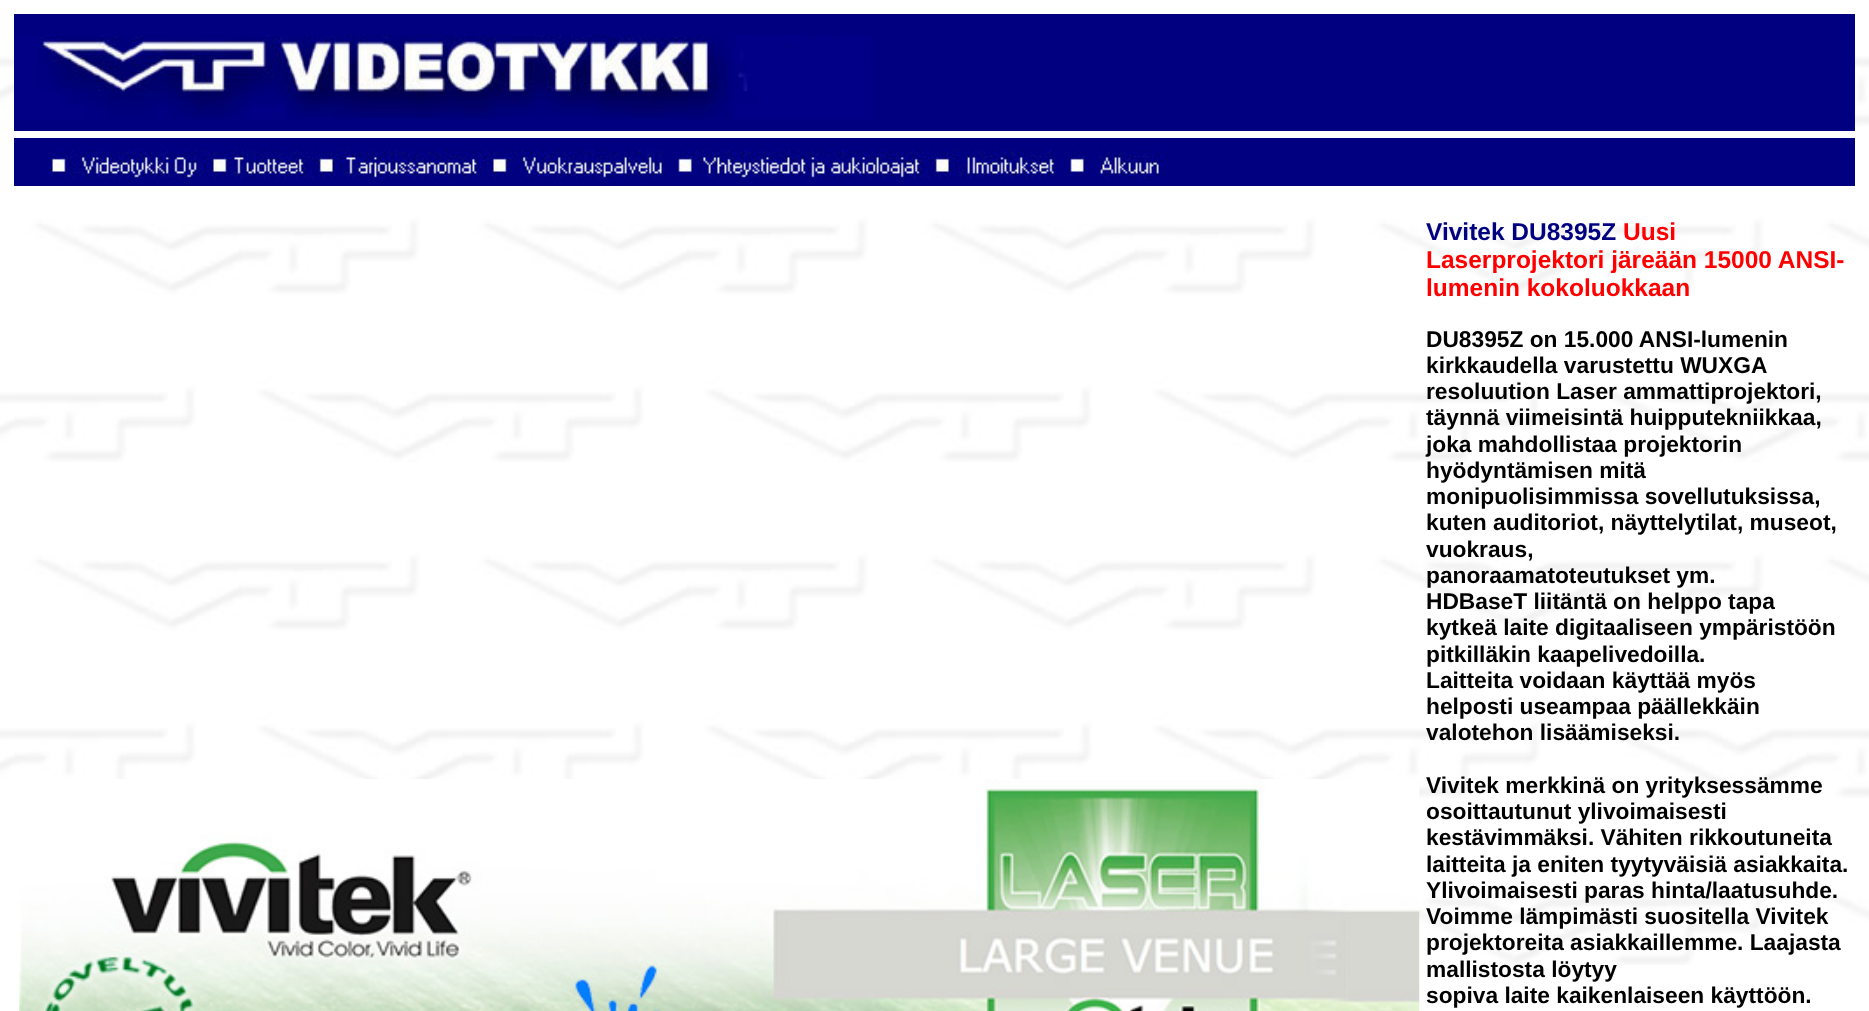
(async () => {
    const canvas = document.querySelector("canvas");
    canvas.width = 1869;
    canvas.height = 1011;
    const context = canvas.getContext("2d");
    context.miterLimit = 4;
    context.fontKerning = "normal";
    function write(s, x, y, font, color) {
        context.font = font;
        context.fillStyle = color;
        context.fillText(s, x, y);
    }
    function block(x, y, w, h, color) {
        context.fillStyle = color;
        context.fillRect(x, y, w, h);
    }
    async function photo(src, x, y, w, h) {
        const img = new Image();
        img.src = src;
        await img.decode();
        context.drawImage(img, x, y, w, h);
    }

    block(0, 0, 1869, 1011, "rgb(255, 255, 255)");
    await photo("media/1.png", 0, 53, 1869, 912);
    block(14, 14, 1841, 172, "rgb(0, 0, 128)");
    await photo("media/2.png", 14, 35, 857, 84);
    block(14, 131, 1841, 7, "rgb(255, 255, 255)");
    await photo("media/3.png", 49, 150, 1117, 29);
    await photo("media/4.png", 19, 779, 1401, 232);
    write("Vivitek DU8395Z", 1426, 240, "bold 24.5px Liberation Sans", "rgb(0, 0, 128)");
    write("Uusi", 1623, 240, "bold 24.5px Liberation Sans", "rgb(255, 0, 0)");
    write("Laserprojektori järeään 15000 ANSI-", 1426, 268, "bold 24.5px Liberation Sans", "rgb(255, 0, 0)");
    write("lumenin kokoluokkaan", 1426, 296, "bold 24.5px Liberation Sans", "rgb(255, 0, 0)");
    write("DU8395Z on 15.000 ANSI-lumenin", 1426, 347, "bold 22.75px Liberation Sans", "rgb(0, 0, 0)");
    write("kirkkaudella varustettu WUXGA", 1426, 373, "bold 22.75px Liberation Sans", "rgb(0, 0, 0)");
    write("resoluution Laser ammattiprojektori,", 1426, 399, "bold 22.75px Liberation Sans", "rgb(0, 0, 0)");
    write("täynnä viimeisintä huipputekniikkaa,", 1426, 425, "bold 22.75px Liberation Sans", "rgb(0, 0, 0)");
    write("joka mahdollistaa projektorin", 1426, 452, "bold 22.75px Liberation Sans", "rgb(0, 0, 0)");
    write("hyödyntämisen mitä", 1426, 478, "bold 22.75px Liberation Sans", "rgb(0, 0, 0)");
    write("monipuolisimmissa sovellutuksissa,", 1426, 504, "bold 22.75px Liberation Sans", "rgb(0, 0, 0)");
    write("kuten auditoriot, näyttelytilat, museot,", 1426, 530, "bold 22.75px Liberation Sans", "rgb(0, 0, 0)");
    write("vuokraus,", 1426, 557, "bold 22.75px Liberation Sans", "rgb(0, 0, 0)");
    write("panoraamatoteutukset ym.", 1426, 583, "bold 22.75px Liberation Sans", "rgb(0, 0, 0)");
    write("HDBaseT liitäntä on helppo tapa", 1426, 609, "bold 22.75px Liberation Sans", "rgb(0, 0, 0)");
    write("kytkeä laite digitaaliseen ympäristöön", 1426, 635, "bold 22.75px Liberation Sans", "rgb(0, 0, 0)");
    write("pitkilläkin kaapelivedoilla.", 1426, 662, "bold 22.75px Liberation Sans", "rgb(0, 0, 0)");
    write("Laitteita voidaan käyttää myös", 1426, 688, "bold 22.75px Liberation Sans", "rgb(0, 0, 0)");
    write("helposti useampaa päällekkäin", 1426, 714, "bold 22.75px Liberation Sans", "rgb(0, 0, 0)");
    write("valotehon lisäämiseksi.", 1426, 740, "bold 22.75px Liberation Sans", "rgb(0, 0, 0)");
    write("Vivitek merkkinä on yrityksessämme", 1426, 793, "bold 22.75px Liberation Sans", "rgb(0, 0, 0)");
    write("osoittautunut ylivoimaisesti", 1426, 819, "bold 22.75px Liberation Sans", "rgb(0, 0, 0)");
    write("kestävimmäksi. Vähiten rikkoutuneita", 1426, 845, "bold 22.75px Liberation Sans", "rgb(0, 0, 0)");
    write("laitteita ja eniten tyytyväisiä asiakkaita.", 1426, 872, "bold 22.75px Liberation Sans", "rgb(0, 0, 0)");
    write("Ylivoimaisesti paras hinta/laatusuhde.", 1426, 898, "bold 22.75px Liberation Sans", "rgb(0, 0, 0)");
    write("Voimme lämpimästi suositella Vivitek", 1426, 924, "bold 22.75px Liberation Sans", "rgb(0, 0, 0)");
    write("projektoreita asiakkaillemme. Laajasta", 1426, 950, "bold 22.75px Liberation Sans", "rgb(0, 0, 0)");
    write("mallistosta löytyy", 1426, 977, "bold 22.75px Liberation Sans", "rgb(0, 0, 0)");
    write("sopiva laite kaikenlaiseen käyttöön.", 1426, 1003, "bold 22.75px Liberation Sans", "rgb(0, 0, 0)");
})();
